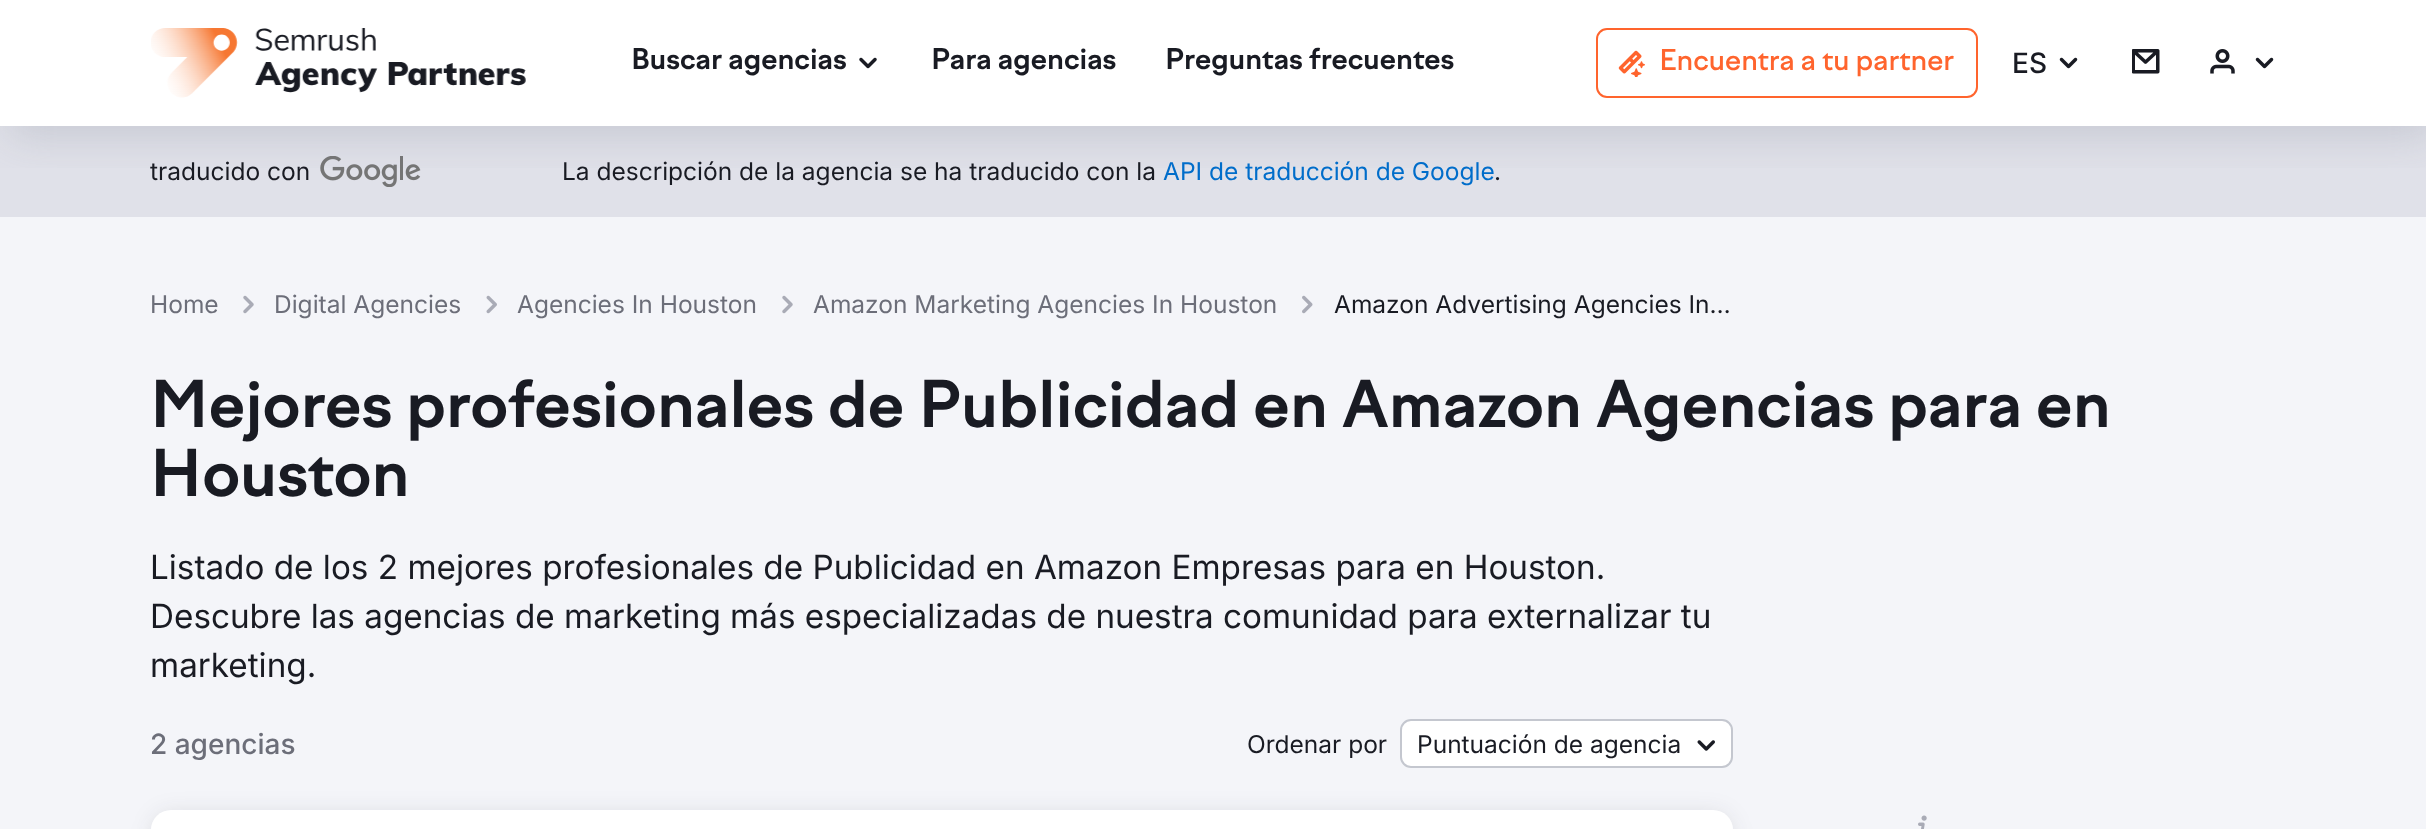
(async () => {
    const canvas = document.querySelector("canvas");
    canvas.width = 2426;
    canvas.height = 829;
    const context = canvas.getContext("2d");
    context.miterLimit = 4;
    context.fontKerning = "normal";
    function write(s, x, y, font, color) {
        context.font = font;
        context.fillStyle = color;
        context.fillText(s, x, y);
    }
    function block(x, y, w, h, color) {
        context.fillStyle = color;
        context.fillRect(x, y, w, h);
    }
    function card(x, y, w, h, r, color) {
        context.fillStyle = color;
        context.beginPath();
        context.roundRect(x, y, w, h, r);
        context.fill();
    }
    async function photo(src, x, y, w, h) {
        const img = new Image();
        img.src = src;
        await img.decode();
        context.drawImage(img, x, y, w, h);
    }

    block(0, 0, 2426, 829, "rgb(255, 255, 255)");
    block(0, 126, 2426, 91, "rgb(224, 225, 233)");
    await photo("media/7.png", 320, 156, 101, 31);
    context.save();
    context.beginPath();
    context.rect(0, 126, 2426, 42);
    context.clip();
    context.fillStyle = "rgba(137, 141, 154, 0.3)";
    context.filter = "blur(22px)";
    context.beginPath();
    context.rect(9, 9, 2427, 126);
    context.fill();
    context.filter = "none";
    context.restore();
    await photo("media/1.png", 151, 28, 375, 70);
    write("Buscar agencias", 631, 69, "bold 28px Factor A", "rgb(25, 27, 35)");
    await photo("media/2.png", 859, 57, 18, 12);
    write("Para agencias", 931, 69, "bold 28px Factor A", "rgb(25, 27, 35)");
    write("Preguntas frecuentes", 1165, 69, "bold 28px Factor A", "rgb(25, 27, 35)");
    context.beginPath();
    context.roundRect(1597, 29, 380, 68, 10);
    context.strokeStyle = "rgb(255, 100, 45)";
    context.lineWidth = 2;
    context.stroke();
    await photo("media/3.png", 1618, 50, 27, 27);
    write("Encuentra a tu partner", 1659, 70, "500 28px Factor A", "rgb(255, 100, 45)");
    write("ES", 2012, 73, "500 28px Inter", "rgb(25, 27, 35)");
    await photo("media/4.png", 2059, 57, 19, 12);
    await photo("media/5.png", 2132, 49, 28, 25);
    await photo("media/6.png", 2210, 49, 25, 25);
    await photo("media/4.png", 2255, 57, 19, 12);
    write("traducido con", 150, 180, "24.5px Inter", "rgb(25, 27, 35)");
    write("La descripción de la agencia se ha traducido con la", 562, 180, "24.5px Inter", "rgb(25, 27, 35)");
    write("API de traducción de Google", 1163, 180, "24.5px Inter", "rgb(0, 109, 202)");
    write(".", 1494, 180, "24.5px Inter", "rgb(25, 27, 35)");
    block(0, 217, 2426, 612, "rgb(244, 245, 249)");
    write("Home", 150, 313, "24.5px Inter", "rgb(108, 110, 121)");
    await photo("media/8.png", 243, 295, 11, 19);
    write("Digital Agencies", 274, 313, "24.5px Inter", "rgb(108, 110, 121)");
    await photo("media/9.png", 486, 295, 11, 19);
    write("Agencies In Houston", 517, 313, "24.5px Inter", "rgb(108, 110, 121)");
    await photo("media/8.png", 782, 295, 11, 19);
    write("Amazon Marketing Agencies In Houston", 813, 313, "24.5px Inter", "rgb(108, 110, 121)");
    await photo("media/10.png", 1302, 295, 11, 19);
    write("Amazon Advertising Agencies In…", 1334, 313, "24.5px Inter", "rgb(25, 27, 35)");
    write("Mejores profesionales de Publicidad en Amazon Agencias para en", 150, 427, "bold 63px Factor A", "rgb(25, 27, 35)");
    write("Houston", 150, 496, "bold 63px Factor A", "rgb(25, 27, 35)");
    write("Listado de los 2 mejores profesionales de Publicidad en Amazon Empresas para en Houston.", 150, 579, "33.25px Inter", "rgb(25, 27, 35)");
    write("Descubre las agencias de marketing más especializadas de nuestra comunidad para externalizar tu", 150, 628, "33.25px Inter", "rgb(25, 27, 35)");
    write("marketing.", 150, 677, "33.25px Inter", "rgb(25, 27, 35)");
    write("2 agencias", 150, 754, "500 28px Inter", "rgb(108, 110, 121)");
    write("Ordenar por", 1247, 753, "24.5px Inter", "rgb(25, 27, 35)");
    context.fillStyle = "rgb(255, 255, 255)";
    context.beginPath();
    context.roundRect(1401, 720, 331, 47, 10);
    context.fill();
    context.strokeStyle = "rgb(196, 199, 207)";
    context.stroke();
    write("Puntuación de agencia", 1417, 753, "24.5px Inter", "rgb(25, 27, 35)");
    await photo("media/11.png", 1697, 740, 18, 11);
    context.fillStyle = "rgba(25, 27, 35, 0.1)";
    context.filter = "blur(10.5px)";
    context.beginPath();
    context.roundRect(151, 812, 1582, 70, 21);
    context.fill();
    context.filter = "none";
    card(151, 810, 1582, 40, 21, "rgb(255, 255, 255)");
    await photo("media/12.png", 1918, 815, 9, 14);
})();
